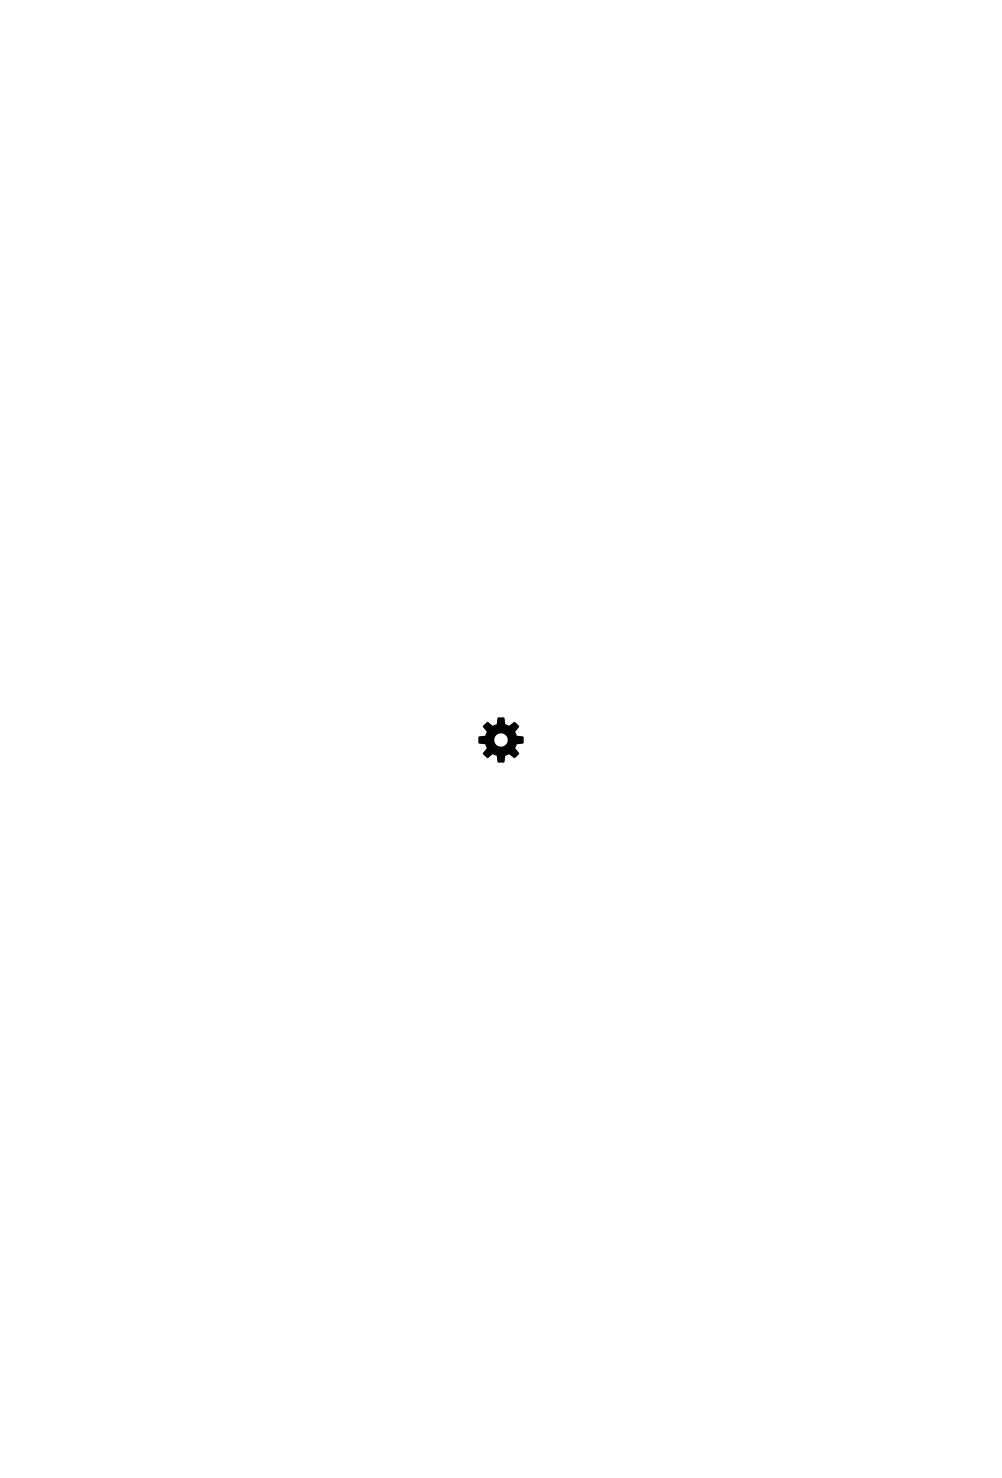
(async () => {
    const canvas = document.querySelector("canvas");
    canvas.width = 1002;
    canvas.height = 1478;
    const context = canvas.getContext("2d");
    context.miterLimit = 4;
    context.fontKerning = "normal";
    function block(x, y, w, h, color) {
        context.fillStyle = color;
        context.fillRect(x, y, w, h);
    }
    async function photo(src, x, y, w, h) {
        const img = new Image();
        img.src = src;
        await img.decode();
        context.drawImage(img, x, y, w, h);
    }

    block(0, 0, 1002, 1478, "rgb(255, 255, 255)");
    await photo("media/1.png", 478, 717, 46, 46);
})();
